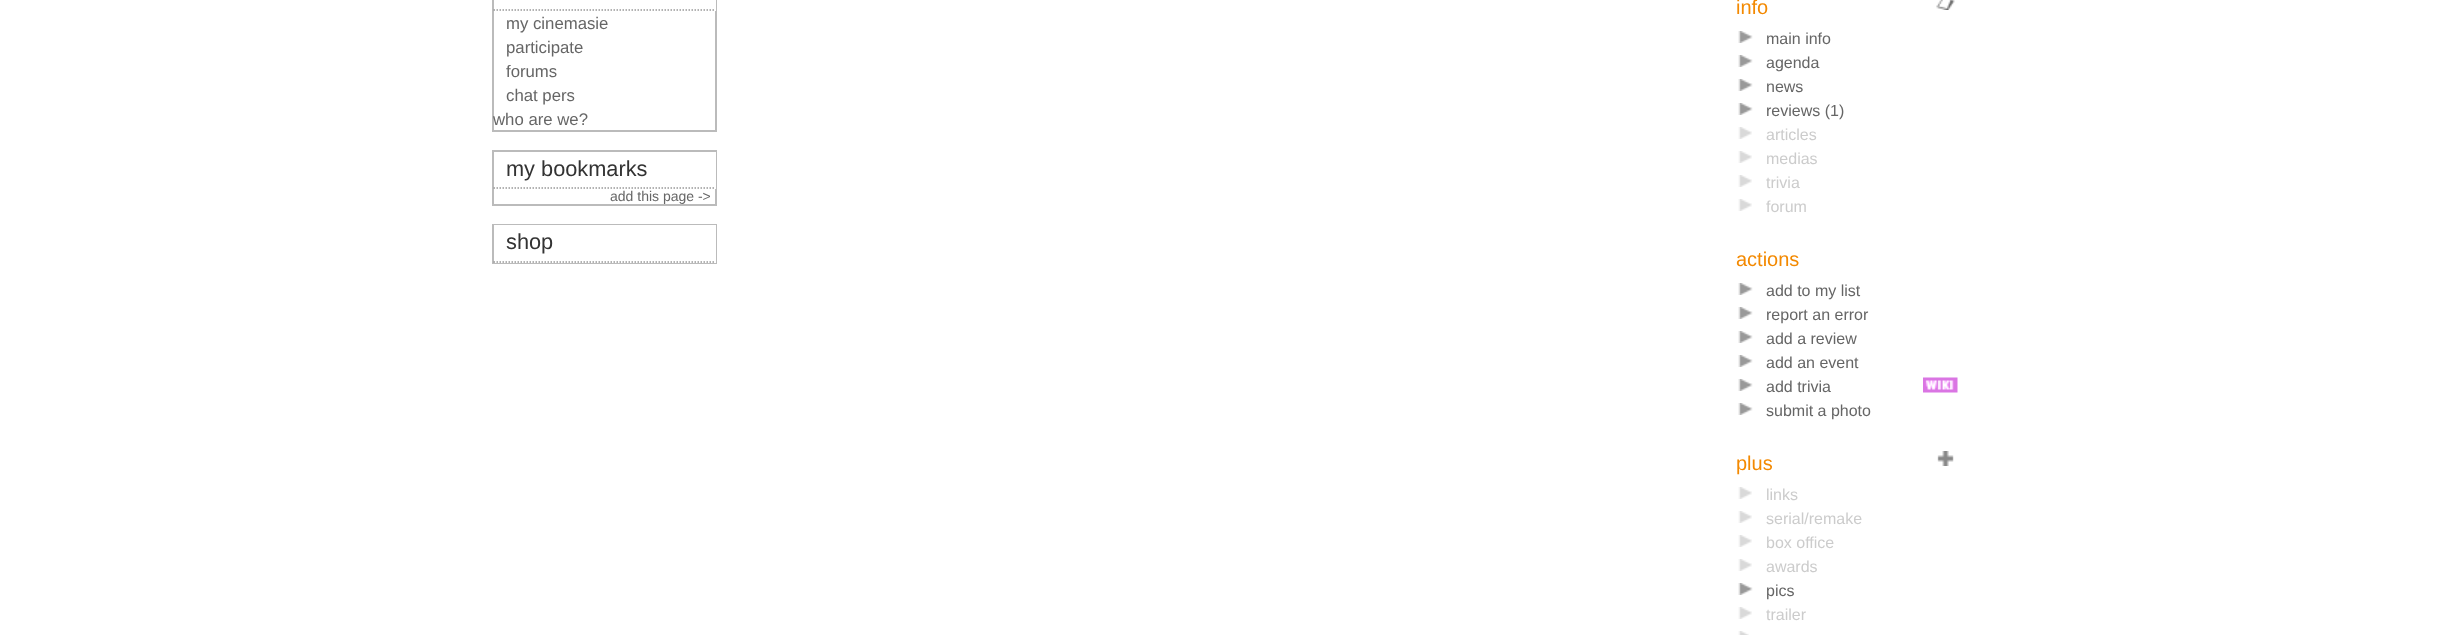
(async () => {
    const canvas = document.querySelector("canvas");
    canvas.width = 2452;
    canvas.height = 635;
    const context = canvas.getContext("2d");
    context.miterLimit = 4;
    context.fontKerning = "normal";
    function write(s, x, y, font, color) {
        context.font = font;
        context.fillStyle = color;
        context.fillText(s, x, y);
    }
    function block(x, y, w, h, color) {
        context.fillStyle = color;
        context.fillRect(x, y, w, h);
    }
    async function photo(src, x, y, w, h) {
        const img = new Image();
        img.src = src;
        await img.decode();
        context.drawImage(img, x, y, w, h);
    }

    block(0, 0, 2452, 635, "rgb(255, 255, 255)");
    context.strokeStyle = "rgb(187, 187, 187)";
    context.lineWidth = 2;
    context.strokeRect(493, -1, 223, 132);
    block(715, 0, 1, 11, "rgb(255, 255, 255)");
    context.beginPath();
    context.moveTo(493.5, 10);
    context.lineTo(715.5, 10);
    context.strokeStyle = "rgb(153, 153, 153)";
    context.lineWidth = 1.5;
    context.setLineDash([1.5, 1.5]);
    context.stroke();
    write("my cinemasie", 506, 29, "16.75px Liberation Sans", "rgb(102, 102, 102)");
    write("participate", 506, 53, "16.75px Liberation Sans", "rgb(102, 102, 102)");
    write("forums", 506, 77, "16.75px Liberation Sans", "rgb(102, 102, 102)");
    write("chat pers", 506, 101, "16.75px Liberation Sans", "rgb(102, 102, 102)");
    write("who are we?", 493, 125, "16.75px Liberation Sans", "rgb(102, 102, 102)");
    context.strokeStyle = "rgb(187, 187, 187)";
    context.lineWidth = 2;
    context.setLineDash([]);
    context.strokeRect(493, 151, 223, 54);
    block(715, 152, 1, 37, "rgb(255, 255, 255)");
    context.beginPath();
    context.moveTo(493.5, 188);
    context.lineTo(715.5, 188);
    context.strokeStyle = "rgb(153, 153, 153)";
    context.lineWidth = 1.5;
    context.setLineDash([1.5, 1.5]);
    context.stroke();
    write("my bookmarks", 506, 176, "21.75px Liberation Sans", "rgb(51, 51, 51)");
    write("add this page ->", 610, 201, "14px Liberation Sans", "rgb(102, 102, 102)");
    context.strokeStyle = "rgb(187, 187, 187)";
    context.lineWidth = 2;
    context.setLineDash([]);
    context.strokeRect(493, 225, 223, 38);
    block(494, 225, 222, 38, "rgb(255, 255, 255)");
    context.beginPath();
    context.moveTo(493.5, 262);
    context.lineTo(715.5, 262);
    context.strokeStyle = "rgb(153, 153, 153)";
    context.lineWidth = 1.5;
    context.setLineDash([1.5, 1.5]);
    context.stroke();
    write("shop", 506, 249, "21.75px Liberation Sans", "rgb(51, 51, 51)");
    write("info", 1736, 14, "20px Liberation Sans", "rgb(243, 137, 1)");
    await photo("media/1.png", 1936, 0, 19, 10);
    await photo("media/2.png", 1738, 31, 15, 12);
    write("main info", 1766, 44, "16px Liberation Sans", "rgb(102, 102, 102)");
    await photo("media/2.png", 1738, 55, 15, 12);
    write("agenda", 1766, 68, "16px Liberation Sans", "rgb(102, 102, 102)");
    await photo("media/2.png", 1738, 79, 15, 12);
    write("news", 1766, 92, "16px Liberation Sans", "rgb(102, 102, 102)");
    await photo("media/2.png", 1738, 103, 15, 12);
    write("reviews (1)", 1766, 116, "16px Liberation Sans", "rgb(102, 102, 102)");
    await photo("media/3.png", 1738, 127, 14, 12);
    write("articles", 1766, 140, "16px Liberation Sans", "rgb(204, 204, 204)");
    await photo("media/3.png", 1738, 151, 14, 12);
    write("medias", 1766, 164, "16px Liberation Sans", "rgb(204, 204, 204)");
    await photo("media/3.png", 1738, 175, 14, 12);
    write("trivia", 1766, 188, "16px Liberation Sans", "rgb(204, 204, 204)");
    await photo("media/3.png", 1738, 199, 14, 12);
    write("forum", 1766, 212, "16px Liberation Sans", "rgb(204, 204, 204)");
    write("actions", 1736, 266, "20px Liberation Sans", "rgb(243, 137, 1)");
    await photo("media/2.png", 1738, 283, 15, 12);
    write("add to my list", 1766, 296, "16px Liberation Sans", "rgb(102, 102, 102)");
    await photo("media/2.png", 1738, 307, 15, 12);
    write("report an error", 1766, 320, "16px Liberation Sans", "rgb(102, 102, 102)");
    await photo("media/2.png", 1738, 331, 15, 12);
    write("add a review", 1766, 344, "16px Liberation Sans", "rgb(102, 102, 102)");
    await photo("media/2.png", 1738, 355, 15, 12);
    write("add an event", 1766, 368, "16px Liberation Sans", "rgb(102, 102, 102)");
    await photo("media/2.png", 1738, 379, 15, 12);
    write("add trivia", 1766, 392, "16px Liberation Sans", "rgb(102, 102, 102)");
    await photo("media/4.png", 1923, 377, 35, 16);
    await photo("media/2.png", 1738, 403, 15, 12);
    write("submit a photo", 1766, 416, "16px Liberation Sans", "rgb(102, 102, 102)");
    write("plus", 1736, 470, "20px Liberation Sans", "rgb(243, 137, 1)");
    await photo("media/5.png", 1937, 451, 17, 15);
    await photo("media/3.png", 1738, 487, 14, 12);
    write("links", 1766, 500, "16px Liberation Sans", "rgb(204, 204, 204)");
    await photo("media/3.png", 1738, 511, 14, 12);
    write("serial/remake", 1766, 524, "16px Liberation Sans", "rgb(204, 204, 204)");
    await photo("media/3.png", 1738, 535, 14, 12);
    write("box office", 1766, 548, "16px Liberation Sans", "rgb(204, 204, 204)");
    await photo("media/3.png", 1738, 559, 14, 12);
    write("awards", 1766, 572, "16px Liberation Sans", "rgb(204, 204, 204)");
    await photo("media/2.png", 1738, 583, 15, 12);
    write("pics", 1766, 596, "16px Liberation Sans", "rgb(102, 102, 102)");
    await photo("media/3.png", 1738, 607, 14, 12);
    write("trailer", 1766, 620, "16px Liberation Sans", "rgb(204, 204, 204)");
    await photo("media/6.png", 1738, 631, 11, 4);
})();
